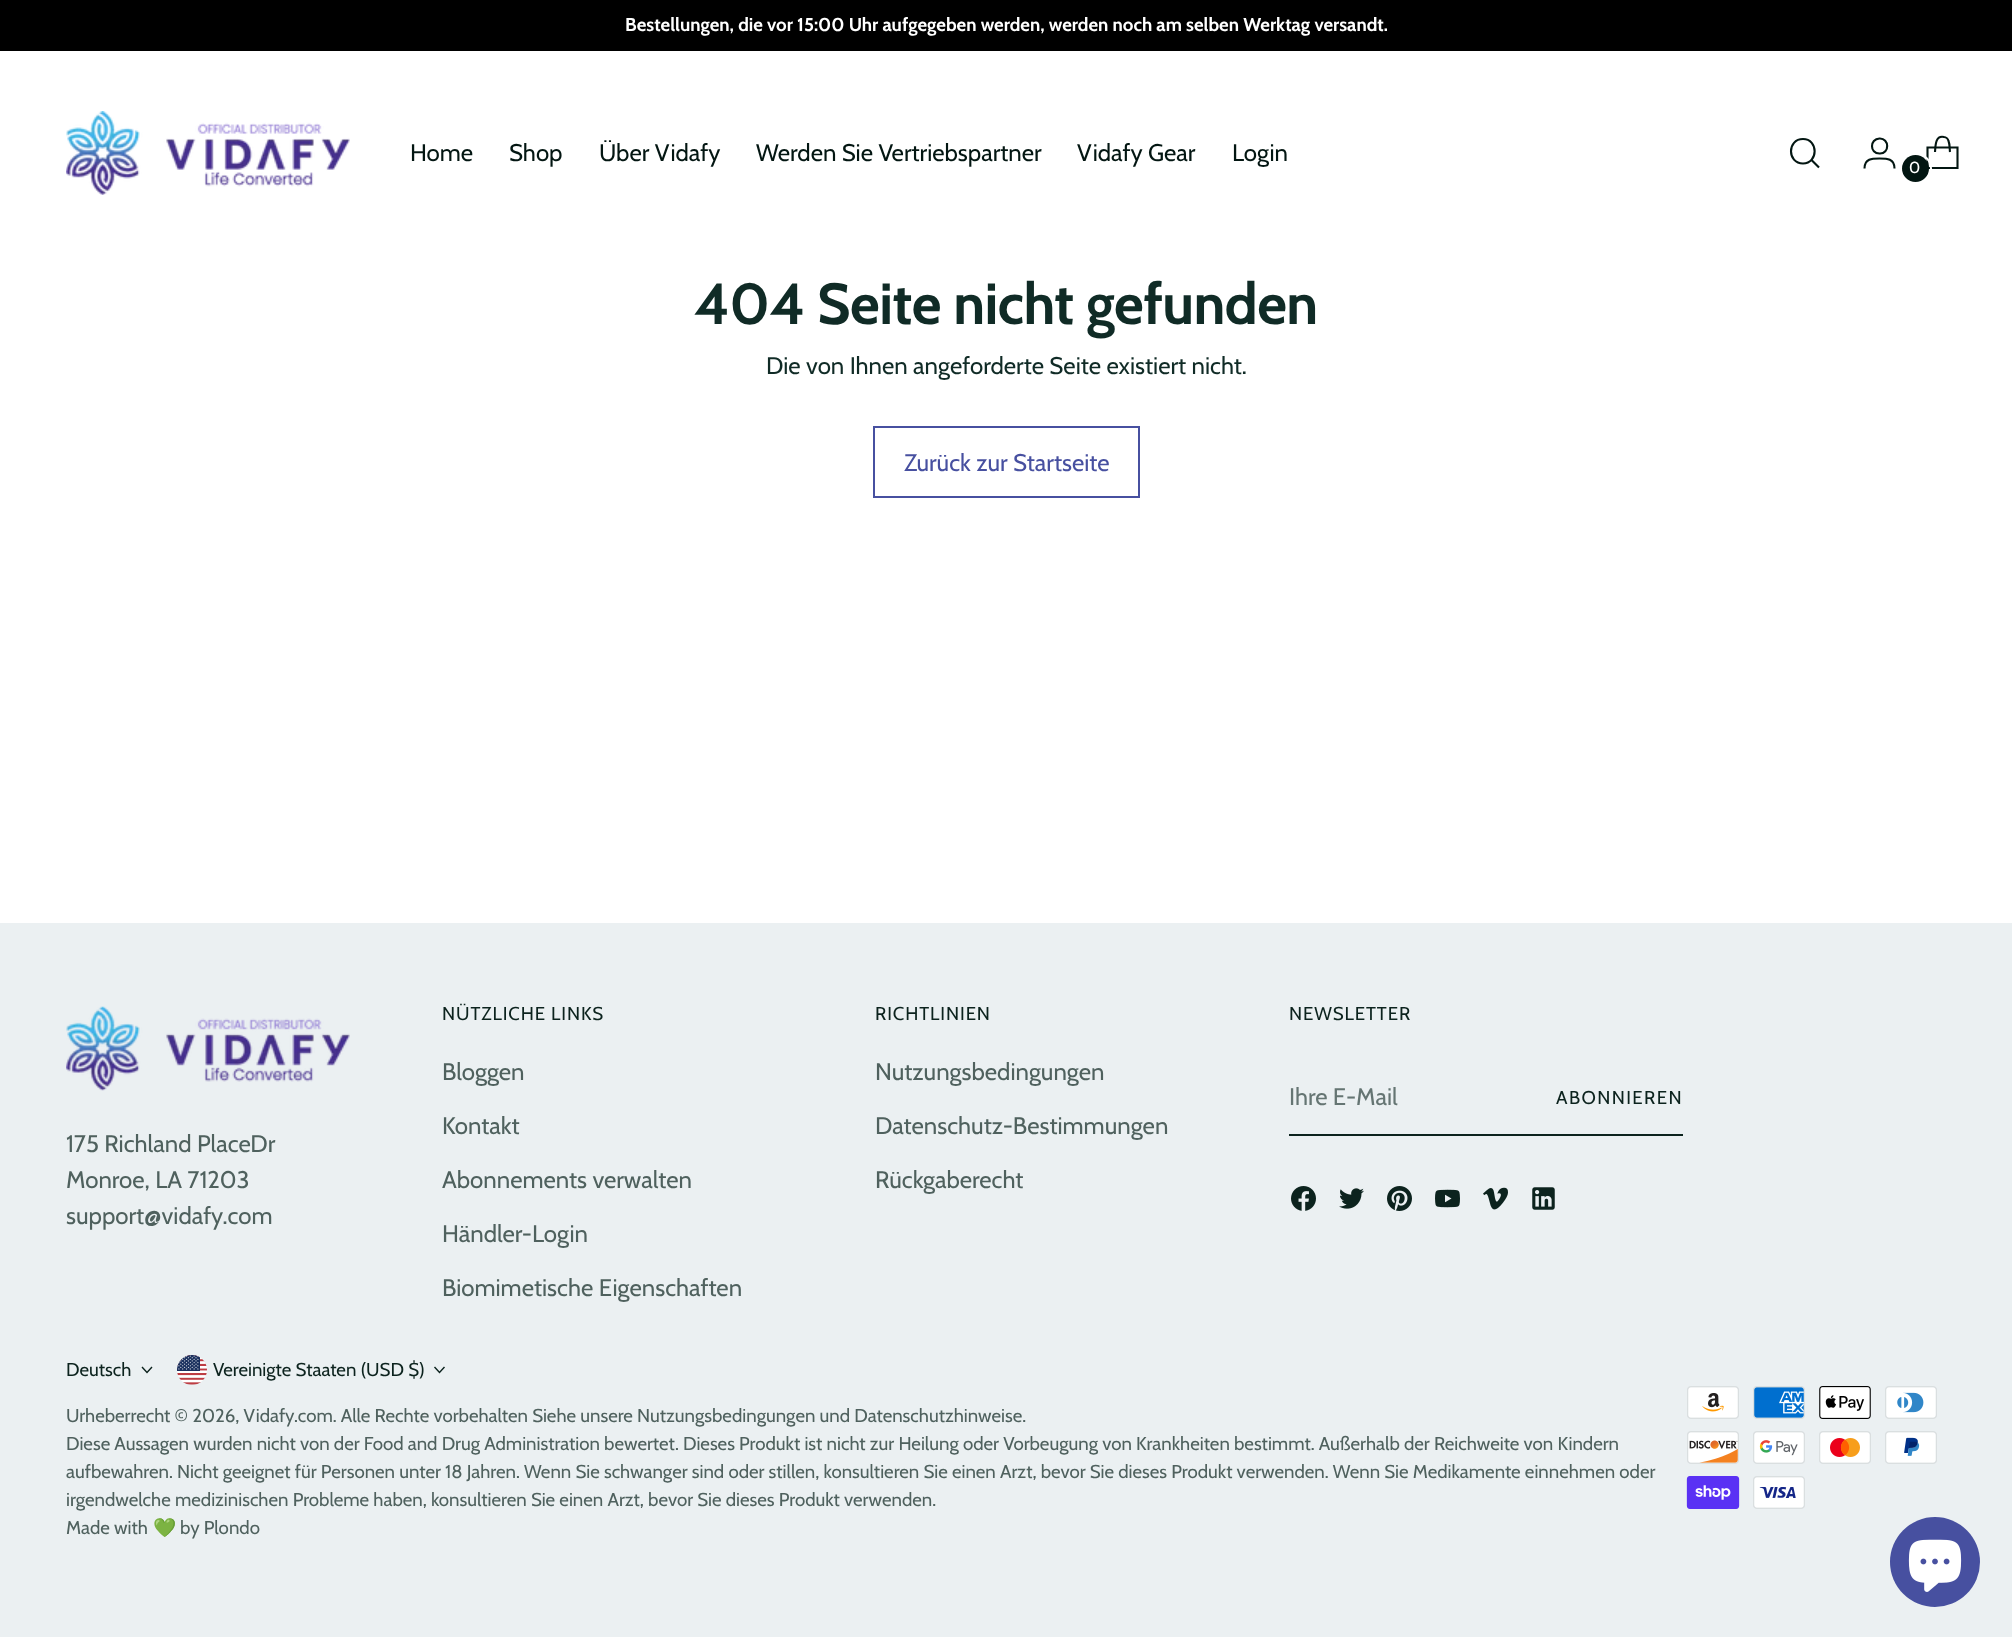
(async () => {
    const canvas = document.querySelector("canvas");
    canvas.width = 2012;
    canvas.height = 1637;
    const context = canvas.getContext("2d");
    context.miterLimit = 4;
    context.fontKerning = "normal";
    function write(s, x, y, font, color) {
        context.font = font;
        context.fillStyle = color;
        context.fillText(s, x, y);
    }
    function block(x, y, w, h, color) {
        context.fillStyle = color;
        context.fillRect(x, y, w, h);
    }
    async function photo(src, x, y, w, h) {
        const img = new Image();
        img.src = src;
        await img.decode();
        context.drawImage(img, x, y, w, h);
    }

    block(0, 0, 2012, 1637, "rgb(255, 255, 255)");
    block(0, 0, 2012, 51, "rgb(0, 0, 0)");
    write("Bestellungen, die vor 15:00 Uhr aufgegeben werden, werden noch am selben Werktag versandt.", 625, 31, "bold 18.65px Cabin", "rgb(255, 255, 255)");
    await photo("media/1.png", 66, 111, 284, 84);
    write("Home", 410, 161, "24px Cabin", "rgb(3, 22, 18)");
    write("Shop", 509, 161, "24px Cabin", "rgb(3, 22, 18)");
    write("Über Vidafy", 599, 161, "24px Cabin", "rgb(3, 22, 18)");
    write("Werden Sie Vertriebspartner", 756, 161, "24px Cabin", "rgb(3, 22, 18)");
    write("Vidafy Gear", 1077, 161, "24px Cabin", "rgb(3, 22, 18)");
    write("Login", 1232, 161, "24px Cabin", "rgb(3, 22, 18)");
    context.beginPath();
    context.moveTo(1803, 163.5);
    context.bezierCurveTo(1818.5, 163.5, 1818.5, 139, 1803, 139);
    context.bezierCurveTo(1787, 139, 1787, 163.5, 1803, 163.5);
    context.closePath();
    context.strokeStyle = "rgb(3, 22, 18)";
    context.lineWidth = 2.1;
    context.lineCap = "round";
    context.stroke();
    context.beginPath();
    context.moveTo(1811.5, 160);
    context.lineTo(1819, 167.5);
    context.lineCap = "butt";
    context.stroke();
    context.beginPath();
    context.moveTo(1879.5, 153.5);
    context.bezierCurveTo(1890, 154, 1889.5, 138, 1879.5, 138.5);
    context.bezierCurveTo(1869.5, 139, 1869.5, 153.5, 1879.5, 153.5);
    context.closePath();
    context.moveTo(1864.5, 168.5);
    context.bezierCurveTo(1864.5, 158.5, 1872, 158.5, 1879.5, 158.5);
    context.bezierCurveTo(1887, 158.5, 1894.5, 158.5, 1894.5, 168.5);
    context.stroke();
    context.beginPath();
    context.moveTo(1950, 152);
    context.bezierCurveTo(1949.5, 148.5, 1950, 144.5, 1948.5, 141);
    context.bezierCurveTo(1948, 139, 1946, 137, 1944, 137);
    context.bezierCurveTo(1935, 135, 1935.5, 146.5, 1935, 152);
    context.lineJoin = "bevel";
    context.stroke();
    context.beginPath();
    context.moveTo(1957.5, 168);
    context.lineTo(1957.5, 147.5);
    context.lineTo(1927.5, 147.5);
    context.lineTo(1927.5, 168);
    context.closePath();
    context.lineJoin = "miter";
    context.stroke();
    context.beginPath();
    context.roundRect(1902, 154, 29, 30, 14.5);
    context.strokeStyle = "rgb(255, 255, 255)";
    context.lineWidth = 2;
    context.stroke();
    context.beginPath();
    context.arc(1915.5, 168.5, 13.5, 0, Math.PI * 2);
    context.fill();
    write("0", 1909, 173, "16px Cabin", "rgb(255, 255, 255)");
    context.letterSpacing = "-0.6px";
    write("404 Seite nicht gefunden", 694, 324, "bold 57.75px Cabin", "rgb(16, 43, 38)");
    context.letterSpacing = "0px";
    write("Die von Ihnen angeforderte Seite existiert nicht.", 766, 374, "24px Cabin", "rgb(16, 43, 38)");
    context.strokeStyle = "rgb(71, 80, 160)";
    context.strokeRect(874, 427, 265, 70);
    write("Zurück zur Startseite", 904, 471, "24px Cabin", "rgb(71, 80, 160)");
    block(0, 923, 2012, 714, "rgb(235, 240, 242)");
    context.letterSpacing = "0.9px";
    write("NÜTZLICHE LINKS", 442, 1020, "18.65px Cabin", "rgb(12, 35, 30)");
    context.letterSpacing = "0px";
    write("Bloggen", 442, 1080, "24px Cabin", "rgb(79, 97, 94)");
    write("Kontakt", 442, 1134, "24px Cabin", "rgb(79, 97, 94)");
    write("Abonnements verwalten", 442, 1188, "24px Cabin", "rgb(79, 97, 94)");
    write("Händler-Login", 442, 1242, "24px Cabin", "rgb(79, 97, 94)");
    write("Biomimetische Eigenschaften", 442, 1296, "24px Cabin", "rgb(79, 97, 94)");
    context.letterSpacing = "0.9px";
    write("RICHTLINIEN", 875, 1020, "18.65px Cabin", "rgb(12, 35, 30)");
    context.letterSpacing = "0px";
    write("Nutzungsbedingungen", 875, 1080, "24px Cabin", "rgb(79, 97, 94)");
    write("Datenschutz-Bestimmungen", 875, 1134, "24px Cabin", "rgb(79, 97, 94)");
    write("Rückgaberecht", 875, 1188, "24px Cabin", "rgb(79, 97, 94)");
    context.letterSpacing = "0.9px";
    write("NEWSLETTER", 1289, 1020, "18.65px Cabin", "rgb(12, 35, 30)");
    block(1289, 1134, 394, 2, "rgb(12, 35, 30)");
    context.letterSpacing = "0px";
    write("Ihre E-Mail", 1289, 1105, "24px Cabin", "rgb(101, 117, 115)");
    context.letterSpacing = "1.4px";
    write("ABONNIEREN", 1556, 1104, "18.65px Cabin", "rgb(12, 35, 30)");
    await photo("media/2.png", 1291, 1186, 25, 25);
    await photo("media/3.png", 1339, 1188, 25, 21);
    await photo("media/4.png", 1387, 1186, 25, 25);
    await photo("media/5.png", 1435, 1189, 25, 19);
    await photo("media/6.png", 1483, 1187, 25, 23);
    await photo("media/7.png", 1532, 1187, 23, 23);
    await photo("media/8.png", 66, 1006, 284, 85);
    context.letterSpacing = "0px";
    write("175 Richland PlaceDr", 66, 1152, "24px Cabin", "rgb(79, 97, 94)");
    write("Monroe, LA 71203", 66, 1188, "24px Cabin", "rgb(79, 97, 94)");
    write("support@vidafy.com", 66, 1224, "24px Cabin", "rgb(79, 97, 94)");
    write("Deutsch", 66, 1376, "18.65px Cabin", "rgb(12, 35, 30)");
    context.beginPath();
    context.moveTo(142, 1367);
    context.lineTo(147, 1372.5);
    context.lineTo(152, 1367);
    context.strokeStyle = "rgb(12, 35, 30)";
    context.lineWidth = 1.4;
    context.stroke();
    await photo("media/9.png", 177, 1355, 30, 30);
    write("Vereinigte Staaten (USD $)", 213, 1376, "18.65px Cabin", "rgb(12, 35, 30)");
    context.beginPath();
    context.moveTo(434.5, 1367);
    context.lineTo(439.5, 1372.5);
    context.lineTo(444.5, 1367);
    context.stroke();
    write("Urheberrecht © 2026, Vidafy.com. Alle Rechte vorbehalten Siehe unsere Nutzungsbedingungen und Datenschutzhinweise.", 66, 1422, "18.65px Cabin", "rgb(79, 97, 94)");
    write("Diese Aussagen wurden nicht von der Food and Drug Administration bewertet. Dieses Produkt ist nicht zur Heilung oder Vorbeugung von Krankheiten bestimmt. Außerhalb der Reichweite von Kindern", 66, 1450, "18.65px Cabin", "rgb(79, 97, 94)");
    write("aufbewahren. Nicht geeignet für Personen unter 18 Jahren. Wenn Sie schwanger sind oder stillen, konsultieren Sie einen Arzt, bevor Sie dieses Produkt verwenden. Wenn Sie Medikamente einnehmen oder", 66, 1478, "18.65px Cabin", "rgb(79, 97, 94)");
    write("irgendwelche medizinischen Probleme haben, konsultieren Sie einen Arzt, bevor Sie dieses Produkt verwenden.", 66, 1506, "18.65px Cabin", "rgb(79, 97, 94)");
    write("Made with", 66, 1534, "18.65px Cabin", "rgb(79, 97, 94)");
    write("💚", 153, 1534, "18.65px Noto Color Emoji", "rgb(79, 97, 94)");
    write("by Plondo", 180, 1534, "18.65px Cabin", "rgb(79, 97, 94)");
    await photo("media/10.png", 1687, 1386, 52, 33);
    await photo("media/11.png", 1753, 1386, 52, 33);
    await photo("media/12.png", 1819, 1386, 52, 33);
    await photo("media/13.png", 1885, 1386, 52, 33);
    await photo("media/14.png", 1687, 1431, 52, 33);
    await photo("media/15.png", 1753, 1431, 52, 33);
    await photo("media/16.png", 1819, 1431, 52, 33);
    await photo("media/17.png", 1885, 1431, 52, 33);
    await photo("media/18.png", 1686, 1476, 54, 33);
    await photo("media/19.png", 1753, 1476, 52, 33);
    context.fillStyle = "rgb(71, 80, 160)";
    context.beginPath();
    context.arc(1935, 1562, 45, 0, Math.PI * 2);
    context.fill();
    await photo("media/20.png", 1908, 1539, 54, 53);
})();
